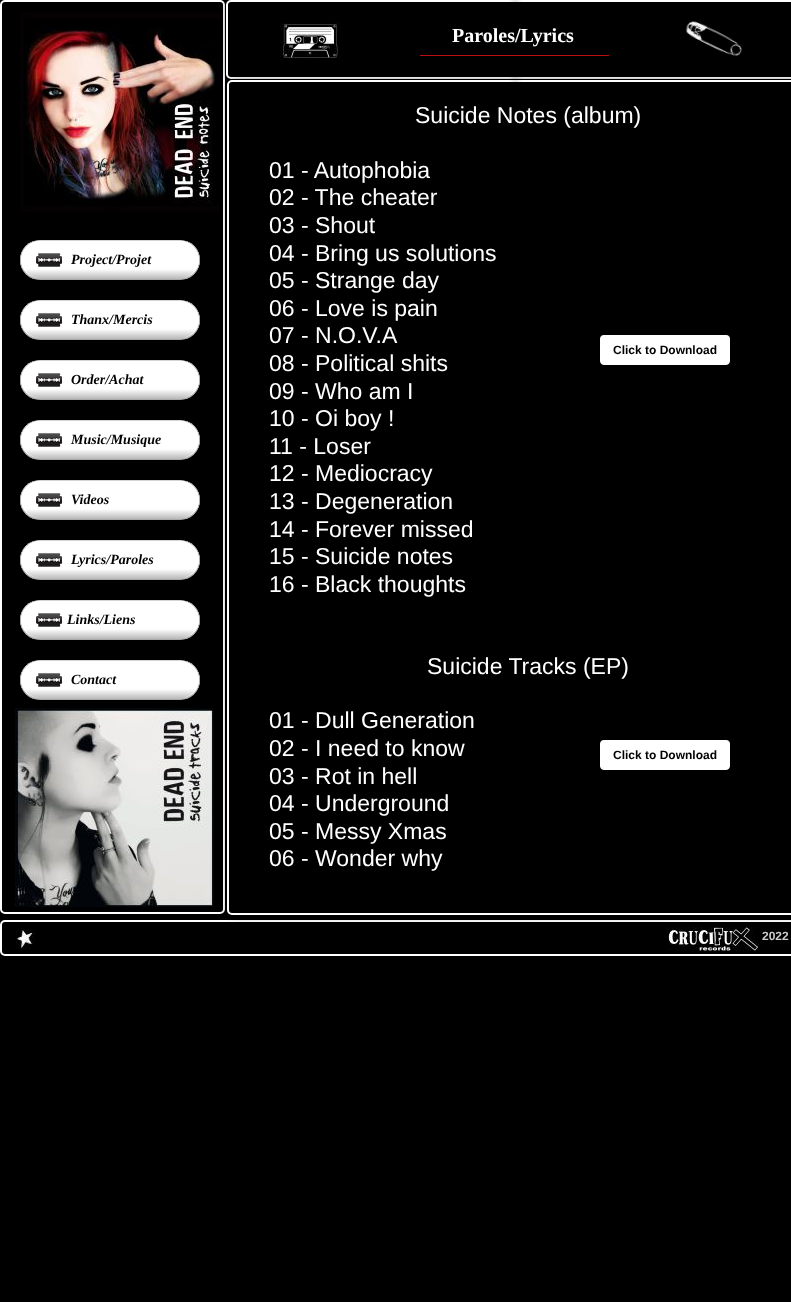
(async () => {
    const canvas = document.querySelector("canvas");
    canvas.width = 791;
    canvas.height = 1302;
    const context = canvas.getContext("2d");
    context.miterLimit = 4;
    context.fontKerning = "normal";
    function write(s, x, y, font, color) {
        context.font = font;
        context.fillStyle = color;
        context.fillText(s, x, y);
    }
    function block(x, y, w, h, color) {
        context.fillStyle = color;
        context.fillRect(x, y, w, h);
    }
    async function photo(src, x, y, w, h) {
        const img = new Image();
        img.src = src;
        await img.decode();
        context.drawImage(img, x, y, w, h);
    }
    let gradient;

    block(0, 0, 791, 1302, "rgb(0, 0, 0)");
    context.beginPath();
    context.roundRect(1, 1, 223, 912, 4);
    context.strokeStyle = "rgb(255, 255, 255)";
    context.lineWidth = 2;
    context.stroke();
    await photo("media/1.png", 20, 12, 199, 200);
    context.save();
    context.beginPath();
    context.moveTo(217, 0);
    context.lineTo(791, 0);
    context.lineTo(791, 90);
    context.lineTo(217, 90);
    context.closePath();
    context.moveTo(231, 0);
    context.lineTo(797, 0);
    context.bezierCurveTo(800, 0, 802, 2, 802, 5);
    context.lineTo(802, 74);
    context.bezierCurveTo(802, 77, 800, 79, 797, 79);
    context.lineTo(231, 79);
    context.bezierCurveTo(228, 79, 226, 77, 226, 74);
    context.lineTo(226, 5);
    context.bezierCurveTo(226, 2, 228, 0, 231, 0);
    context.closePath();
    context.clip("evenodd");
    context.fillStyle = "rgba(0, 0, 0, 0.8)";
    context.filter = "blur(3px)";
    context.beginPath();
    context.roundRect(227, 1, 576, 79, 5);
    context.fill();
    context.filter = "none";
    context.restore();
    context.beginPath();
    context.roundRect(227, 1, 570, 77, 4);
    context.stroke();
    await photo("media/2.png", 280, 23, 60, 35);
    context.beginPath();
    context.roundRect(1, 921, 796, 34, 4);
    context.stroke();
    context.save();
    context.beginPath();
    context.moveTo(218, 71);
    context.lineTo(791, 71);
    context.lineTo(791, 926);
    context.lineTo(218, 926);
    context.closePath();
    context.moveTo(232, 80);
    context.lineTo(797, 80);
    context.bezierCurveTo(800, 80, 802, 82, 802, 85);
    context.lineTo(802, 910);
    context.bezierCurveTo(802, 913, 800, 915, 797, 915);
    context.lineTo(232, 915);
    context.bezierCurveTo(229, 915, 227, 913, 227, 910);
    context.lineTo(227, 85);
    context.bezierCurveTo(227, 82, 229, 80, 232, 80);
    context.closePath();
    context.clip("evenodd");
    context.fillStyle = "rgba(0, 0, 0, 0.8)";
    context.filter = "blur(3px)";
    context.beginPath();
    context.roundRect(228, 81, 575, 835, 5);
    context.fill();
    context.filter = "none";
    context.restore();
    context.beginPath();
    context.roundRect(228, 81, 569, 833, 4);
    context.stroke();
    context.fillStyle = "rgba(0, 0, 0, 0.8)";
    context.filter = "blur(3px)";
    context.beginPath();
    context.rect(515, -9, 1, 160);
    context.fill();
    context.filter = "none";
    block(420, 55, 189, 1, "rgb(185, 15, 18)");
    await photo("media/3.png", 685, 21, 57, 35);
    write("Paroles/Lyrics", 452, 42, "bold 20px Liberation Serif", "rgb(255, 255, 255)");
    context.fillStyle = "rgba(0, 0, 0, 0.8)";
    context.filter = "blur(3px)";
    context.beginPath();
    context.rect(113, 125, 1, 200);
    context.fill();
    context.filter = "none";
    write("Suicide Notes (album)", 415, 123, "23px Liberation Sans", "rgb(255, 255, 255)");
    write("01 - Autophobia", 269, 178, "23px Liberation Sans", "rgb(255, 255, 255)");
    write("02 - The cheater", 269, 205, "23px Liberation Sans", "rgb(255, 255, 255)");
    write("03 - Shout", 269, 233, "23px Liberation Sans", "rgb(255, 255, 255)");
    write("04 - Bring us solutions", 269, 261, "23px Liberation Sans", "rgb(255, 255, 255)");
    write("05 - Strange day", 269, 288, "23px Liberation Sans", "rgb(255, 255, 255)");
    write("06 - Love is pain", 269, 316, "23px Liberation Sans", "rgb(255, 255, 255)");
    write("07 - N.O.V.A", 269, 343, "23px Liberation Sans", "rgb(255, 255, 255)");
    write("08 - Political shits", 269, 371, "23px Liberation Sans", "rgb(255, 255, 255)");
    write("09 - Who am I", 269, 399, "23px Liberation Sans", "rgb(255, 255, 255)");
    write("10 - Oi boy !", 269, 426, "23px Liberation Sans", "rgb(255, 255, 255)");
    write("11 - Loser", 269, 454, "23px Liberation Sans", "rgb(255, 255, 255)");
    write("12 - Mediocracy", 269, 481, "23px Liberation Sans", "rgb(255, 255, 255)");
    write("13 - Degeneration", 269, 509, "23px Liberation Sans", "rgb(255, 255, 255)");
    write("14 - Forever missed", 269, 537, "23px Liberation Sans", "rgb(255, 255, 255)");
    write("15 - Suicide notes", 269, 564, "23px Liberation Sans", "rgb(255, 255, 255)");
    write("16 - Black thoughts", 269, 592, "23px Liberation Sans", "rgb(255, 255, 255)");
    write("Suicide Tracks (EP)", 427, 674, "23px Liberation Sans", "rgb(255, 255, 255)");
    write("01 - Dull Generation", 269, 728, "23px Liberation Sans", "rgb(255, 255, 255)");
    write("02 - I need to know", 269, 756, "23px Liberation Sans", "rgb(255, 255, 255)");
    write("03 - Rot in hell", 269, 784, "23px Liberation Sans", "rgb(255, 255, 255)");
    write("04 - Underground", 269, 811, "23px Liberation Sans", "rgb(255, 255, 255)");
    write("05 - Messy Xmas", 269, 839, "23px Liberation Sans", "rgb(255, 255, 255)");
    write("06 - Wonder why", 269, 866, "23px Liberation Sans", "rgb(255, 255, 255)");
    context.save();
    context.beginPath();
    context.roundRect(20, 240, 180, 40, 20);
    context.clip();
    gradient = context.createLinearGradient(21, 269, 21, 281);
    gradient.addColorStop(0, "rgb(255, 255, 255)");
    gradient.addColorStop(1, "rgb(170, 170, 170)");
    context.fillStyle = gradient;
    context.fillRect(20, 241, 180, 38);
    context.restore();
    context.beginPath();
    context.roundRect(20.5, 240.5, 179, 39, 19.5);
    context.strokeStyle = "rgb(170, 170, 170)";
    context.lineWidth = 1;
    context.stroke();
    await photo("media/4.png", 36, 253, 26, 14);
    context.beginPath();
    context.moveTo(40, 241);
    context.lineTo(180, 241);
    context.bezierCurveTo(191, 241, 199, 249, 199, 260);
    context.bezierCurveTo(199, 270, 191, 278, 180, 278);
    context.lineTo(40, 278);
    context.bezierCurveTo(29, 278, 21, 270, 21, 260);
    context.bezierCurveTo(21, 249, 29, 241, 40, 241);
    context.closePath();
    context.moveTo(40, 242);
    context.lineTo(180, 242);
    context.bezierCurveTo(190, 242, 198, 250, 198, 260);
    context.bezierCurveTo(198, 270, 190, 278, 180, 278);
    context.lineTo(40, 278);
    context.bezierCurveTo(30, 278, 22, 270, 22, 260);
    context.bezierCurveTo(22, 250, 30, 242, 40, 242);
    context.closePath();
    context.fill("evenodd");
    gradient = context.createLinearGradient(30, 240, 30, 260);
    gradient.addColorStop(0, "rgba(255, 255, 255, 0.5)");
    gradient.addColorStop(1, "rgba(255, 255, 255, 0.1)");
    context.fillStyle = gradient;
    context.beginPath();
    context.roundRect(30, 240, 160, 20, 10);
    context.fill();
    write("Project/Projet", 71, 264, "italic bold 14px Liberation Serif", "rgb(0, 0, 0)");
    context.save();
    context.beginPath();
    context.roundRect(20, 300, 180, 40, 20);
    context.clip();
    gradient = context.createLinearGradient(21, 329, 21, 341);
    gradient.addColorStop(0, "rgb(255, 255, 255)");
    gradient.addColorStop(1, "rgb(170, 170, 170)");
    context.fillStyle = gradient;
    context.fillRect(20, 301, 180, 38);
    context.restore();
    context.beginPath();
    context.roundRect(20.5, 300.5, 179, 39, 19.5);
    context.stroke();
    await photo("media/4.png", 36, 313, 26, 14);
    context.fillStyle = "rgb(255, 255, 255)";
    context.beginPath();
    context.moveTo(40, 301);
    context.lineTo(180, 301);
    context.bezierCurveTo(191, 301, 199, 309, 199, 320);
    context.bezierCurveTo(199, 330, 191, 338, 180, 338);
    context.lineTo(40, 338);
    context.bezierCurveTo(29, 338, 21, 330, 21, 320);
    context.bezierCurveTo(21, 309, 29, 301, 40, 301);
    context.closePath();
    context.moveTo(40, 302);
    context.lineTo(180, 302);
    context.bezierCurveTo(190, 302, 198, 310, 198, 320);
    context.bezierCurveTo(198, 330, 190, 338, 180, 338);
    context.lineTo(40, 338);
    context.bezierCurveTo(30, 338, 22, 330, 22, 320);
    context.bezierCurveTo(22, 310, 30, 302, 40, 302);
    context.closePath();
    context.fill("evenodd");
    gradient = context.createLinearGradient(30, 300, 30, 320);
    gradient.addColorStop(0, "rgba(255, 255, 255, 0.5)");
    gradient.addColorStop(1, "rgba(255, 255, 255, 0.1)");
    context.fillStyle = gradient;
    context.beginPath();
    context.roundRect(30, 300, 160, 20, 10);
    context.fill();
    write("Thanx/Mercis", 71, 324, "italic bold 14px Liberation Serif", "rgb(0, 0, 0)");
    context.fillStyle = "rgb(255, 255, 255)";
    context.beginPath();
    context.roundRect(600.5, 335.5, 129, 29, 3.5);
    context.fill();
    context.strokeStyle = "rgb(255, 255, 255)";
    context.stroke();
    gradient = context.createLinearGradient(600, 335, 600, 350);
    gradient.addColorStop(0, "rgba(255, 255, 255, 0.5)");
    gradient.addColorStop(1, "rgba(255, 255, 255, 0.1)");
    context.fillStyle = gradient;
    context.beginPath();
    context.roundRect(600, 335, 130, 15, 4);
    context.fill();
    write("Click to Download", 613, 354, "bold 12px Liberation Sans", "rgb(0, 0, 0)");
    context.save();
    context.beginPath();
    context.roundRect(20, 360, 180, 40, 20);
    context.clip();
    gradient = context.createLinearGradient(21, 389, 21, 401);
    gradient.addColorStop(0, "rgb(255, 255, 255)");
    gradient.addColorStop(1, "rgb(170, 170, 170)");
    context.fillStyle = gradient;
    context.fillRect(20, 361, 180, 38);
    context.restore();
    context.beginPath();
    context.roundRect(20.5, 360.5, 179, 39, 19.5);
    context.strokeStyle = "rgb(170, 170, 170)";
    context.stroke();
    await photo("media/4.png", 36, 373, 26, 14);
    context.fillStyle = "rgb(255, 255, 255)";
    context.beginPath();
    context.moveTo(40, 361);
    context.lineTo(180, 361);
    context.bezierCurveTo(191, 361, 199, 369, 199, 380);
    context.bezierCurveTo(199, 390, 191, 398, 180, 398);
    context.lineTo(40, 398);
    context.bezierCurveTo(29, 398, 21, 390, 21, 380);
    context.bezierCurveTo(21, 369, 29, 361, 40, 361);
    context.closePath();
    context.moveTo(40, 362);
    context.lineTo(180, 362);
    context.bezierCurveTo(190, 362, 198, 370, 198, 380);
    context.bezierCurveTo(198, 390, 190, 398, 180, 398);
    context.lineTo(40, 398);
    context.bezierCurveTo(30, 398, 22, 390, 22, 380);
    context.bezierCurveTo(22, 370, 30, 362, 40, 362);
    context.closePath();
    context.fill("evenodd");
    gradient = context.createLinearGradient(30, 360, 30, 380);
    gradient.addColorStop(0, "rgba(255, 255, 255, 0.5)");
    gradient.addColorStop(1, "rgba(255, 255, 255, 0.1)");
    context.fillStyle = gradient;
    context.beginPath();
    context.roundRect(30, 360, 160, 20, 10);
    context.fill();
    write("Order/Achat", 71, 384, "italic bold 14px Liberation Serif", "rgb(0, 0, 0)");
    context.save();
    context.beginPath();
    context.roundRect(20, 420, 180, 40, 20);
    context.clip();
    gradient = context.createLinearGradient(21, 449, 21, 461);
    gradient.addColorStop(0, "rgb(255, 255, 255)");
    gradient.addColorStop(1, "rgb(170, 170, 170)");
    context.fillStyle = gradient;
    context.fillRect(20, 421, 180, 38);
    context.restore();
    context.beginPath();
    context.roundRect(20.5, 420.5, 179, 39, 19.5);
    context.stroke();
    await photo("media/4.png", 36, 433, 26, 14);
    context.fillStyle = "rgb(255, 255, 255)";
    context.beginPath();
    context.moveTo(40, 421);
    context.lineTo(180, 421);
    context.bezierCurveTo(191, 421, 199, 429, 199, 440);
    context.bezierCurveTo(199, 450, 191, 458, 180, 458);
    context.lineTo(40, 458);
    context.bezierCurveTo(29, 458, 21, 450, 21, 440);
    context.bezierCurveTo(21, 429, 29, 421, 40, 421);
    context.closePath();
    context.moveTo(40, 422);
    context.lineTo(180, 422);
    context.bezierCurveTo(190, 422, 198, 430, 198, 440);
    context.bezierCurveTo(198, 450, 190, 458, 180, 458);
    context.lineTo(40, 458);
    context.bezierCurveTo(30, 458, 22, 450, 22, 440);
    context.bezierCurveTo(22, 430, 30, 422, 40, 422);
    context.closePath();
    context.fill("evenodd");
    gradient = context.createLinearGradient(30, 420, 30, 440);
    gradient.addColorStop(0, "rgba(255, 255, 255, 0.5)");
    gradient.addColorStop(1, "rgba(255, 255, 255, 0.1)");
    context.fillStyle = gradient;
    context.beginPath();
    context.roundRect(30, 420, 160, 20, 10);
    context.fill();
    write("Music/Musique", 71, 444, "italic bold 14px Liberation Serif", "rgb(0, 0, 0)");
    context.save();
    context.beginPath();
    context.roundRect(20, 480, 180, 40, 20);
    context.clip();
    gradient = context.createLinearGradient(21, 509, 21, 521);
    gradient.addColorStop(0, "rgb(255, 255, 255)");
    gradient.addColorStop(1, "rgb(170, 170, 170)");
    context.fillStyle = gradient;
    context.fillRect(20, 481, 180, 38);
    context.restore();
    context.beginPath();
    context.roundRect(20.5, 480.5, 179, 39, 19.5);
    context.stroke();
    await photo("media/4.png", 36, 493, 26, 14);
    context.fillStyle = "rgb(255, 255, 255)";
    context.beginPath();
    context.moveTo(40, 481);
    context.lineTo(180, 481);
    context.bezierCurveTo(191, 481, 199, 489, 199, 500);
    context.bezierCurveTo(199, 510, 191, 518, 180, 518);
    context.lineTo(40, 518);
    context.bezierCurveTo(29, 518, 21, 510, 21, 500);
    context.bezierCurveTo(21, 489, 29, 481, 40, 481);
    context.closePath();
    context.moveTo(40, 482);
    context.lineTo(180, 482);
    context.bezierCurveTo(190, 482, 198, 490, 198, 500);
    context.bezierCurveTo(198, 510, 190, 518, 180, 518);
    context.lineTo(40, 518);
    context.bezierCurveTo(30, 518, 22, 510, 22, 500);
    context.bezierCurveTo(22, 490, 30, 482, 40, 482);
    context.closePath();
    context.fill("evenodd");
    gradient = context.createLinearGradient(30, 480, 30, 500);
    gradient.addColorStop(0, "rgba(255, 255, 255, 0.5)");
    gradient.addColorStop(1, "rgba(255, 255, 255, 0.1)");
    context.fillStyle = gradient;
    context.beginPath();
    context.roundRect(30, 480, 160, 20, 10);
    context.fill();
    write("Videos", 71, 504, "italic bold 14px Liberation Serif", "rgb(0, 0, 0)");
    context.save();
    context.beginPath();
    context.roundRect(20, 540, 180, 40, 20);
    context.clip();
    gradient = context.createLinearGradient(21, 569, 21, 581);
    gradient.addColorStop(0, "rgb(255, 255, 255)");
    gradient.addColorStop(1, "rgb(170, 170, 170)");
    context.fillStyle = gradient;
    context.fillRect(20, 541, 180, 38);
    context.restore();
    context.beginPath();
    context.roundRect(20.5, 540.5, 179, 39, 19.5);
    context.stroke();
    await photo("media/4.png", 36, 553, 26, 14);
    context.fillStyle = "rgb(255, 255, 255)";
    context.beginPath();
    context.moveTo(40, 541);
    context.lineTo(180, 541);
    context.bezierCurveTo(191, 541, 199, 549, 199, 560);
    context.bezierCurveTo(199, 570, 191, 578, 180, 578);
    context.lineTo(40, 578);
    context.bezierCurveTo(29, 578, 21, 570, 21, 560);
    context.bezierCurveTo(21, 549, 29, 541, 40, 541);
    context.closePath();
    context.moveTo(40, 542);
    context.lineTo(180, 542);
    context.bezierCurveTo(190, 542, 198, 550, 198, 560);
    context.bezierCurveTo(198, 570, 190, 578, 180, 578);
    context.lineTo(40, 578);
    context.bezierCurveTo(30, 578, 22, 570, 22, 560);
    context.bezierCurveTo(22, 550, 30, 542, 40, 542);
    context.closePath();
    context.fill("evenodd");
    gradient = context.createLinearGradient(30, 540, 30, 560);
    gradient.addColorStop(0, "rgba(255, 255, 255, 0.5)");
    gradient.addColorStop(1, "rgba(255, 255, 255, 0.1)");
    context.fillStyle = gradient;
    context.beginPath();
    context.roundRect(30, 540, 160, 20, 10);
    context.fill();
    write("Lyrics/Paroles", 71, 564, "italic bold 14px Liberation Serif", "rgb(0, 0, 0)");
    context.save();
    context.beginPath();
    context.roundRect(20, 600, 180, 40, 20);
    context.clip();
    gradient = context.createLinearGradient(21, 629, 21, 641);
    gradient.addColorStop(0, "rgb(255, 255, 255)");
    gradient.addColorStop(1, "rgb(170, 170, 170)");
    context.fillStyle = gradient;
    context.fillRect(20, 601, 180, 38);
    context.restore();
    context.beginPath();
    context.roundRect(20.5, 600.5, 179, 39, 19.5);
    context.stroke();
    await photo("media/4.png", 36, 613, 26, 14);
    context.fillStyle = "rgb(255, 255, 255)";
    context.beginPath();
    context.moveTo(40, 601);
    context.lineTo(180, 601);
    context.bezierCurveTo(191, 601, 199, 609, 199, 620);
    context.bezierCurveTo(199, 630, 191, 638, 180, 638);
    context.lineTo(40, 638);
    context.bezierCurveTo(29, 638, 21, 630, 21, 620);
    context.bezierCurveTo(21, 609, 29, 601, 40, 601);
    context.closePath();
    context.moveTo(40, 602);
    context.lineTo(180, 602);
    context.bezierCurveTo(190, 602, 198, 610, 198, 620);
    context.bezierCurveTo(198, 630, 190, 638, 180, 638);
    context.lineTo(40, 638);
    context.bezierCurveTo(30, 638, 22, 630, 22, 620);
    context.bezierCurveTo(22, 610, 30, 602, 40, 602);
    context.closePath();
    context.fill("evenodd");
    gradient = context.createLinearGradient(30, 600, 30, 620);
    gradient.addColorStop(0, "rgba(255, 255, 255, 0.5)");
    gradient.addColorStop(1, "rgba(255, 255, 255, 0.1)");
    context.fillStyle = gradient;
    context.beginPath();
    context.roundRect(30, 600, 160, 20, 10);
    context.fill();
    write("Links/Liens", 67, 624, "italic bold 14px Liberation Serif", "rgb(0, 0, 0)");
    context.save();
    context.beginPath();
    context.roundRect(20, 660, 180, 40, 20);
    context.clip();
    gradient = context.createLinearGradient(21, 689, 21, 701);
    gradient.addColorStop(0, "rgb(255, 255, 255)");
    gradient.addColorStop(1, "rgb(170, 170, 170)");
    context.fillStyle = gradient;
    context.fillRect(20, 661, 180, 38);
    context.restore();
    context.beginPath();
    context.roundRect(20.5, 660.5, 179, 39, 19.5);
    context.stroke();
    await photo("media/5.png", 36, 673, 26, 14);
    context.fillStyle = "rgb(255, 255, 255)";
    context.beginPath();
    context.moveTo(40, 661);
    context.lineTo(180, 661);
    context.bezierCurveTo(191, 661, 199, 669, 199, 680);
    context.bezierCurveTo(199, 690, 191, 698, 180, 698);
    context.lineTo(40, 698);
    context.bezierCurveTo(29, 698, 21, 690, 21, 680);
    context.bezierCurveTo(21, 669, 29, 661, 40, 661);
    context.closePath();
    context.moveTo(40, 662);
    context.lineTo(180, 662);
    context.bezierCurveTo(190, 662, 198, 670, 198, 680);
    context.bezierCurveTo(198, 690, 190, 698, 180, 698);
    context.lineTo(40, 698);
    context.bezierCurveTo(30, 698, 22, 690, 22, 680);
    context.bezierCurveTo(22, 670, 30, 662, 40, 662);
    context.closePath();
    context.fill("evenodd");
    gradient = context.createLinearGradient(30, 660, 30, 680);
    gradient.addColorStop(0, "rgba(255, 255, 255, 0.5)");
    gradient.addColorStop(1, "rgba(255, 255, 255, 0.1)");
    context.fillStyle = gradient;
    context.beginPath();
    context.roundRect(30, 660, 160, 20, 10);
    context.fill();
    write("Contact", 71, 684, "italic bold 14px Liberation Serif", "rgb(0, 0, 0)");
    await photo("media/6.png", 15, 708, 199, 199);
    context.fillStyle = "rgb(255, 255, 255)";
    context.beginPath();
    context.roundRect(600.5, 740.5, 129, 29, 3.5);
    context.fill();
    context.strokeStyle = "rgb(255, 255, 255)";
    context.stroke();
    gradient = context.createLinearGradient(600, 740, 600, 755);
    gradient.addColorStop(0, "rgba(255, 255, 255, 0.5)");
    gradient.addColorStop(1, "rgba(255, 255, 255, 0.1)");
    context.fillStyle = gradient;
    context.beginPath();
    context.roundRect(600, 740, 130, 15, 4);
    context.fill();
    write("Click to Download", 613, 759, "bold 12px Liberation Sans", "rgb(0, 0, 0)");
    await photo("media/7.png", 15, 929, 20, 20);
    await photo("media/8.png", 667, 927, 92, 24);
    write("2022", 762, 940, "bold 12px Liberation Sans", "rgb(204, 204, 204)");
})();
